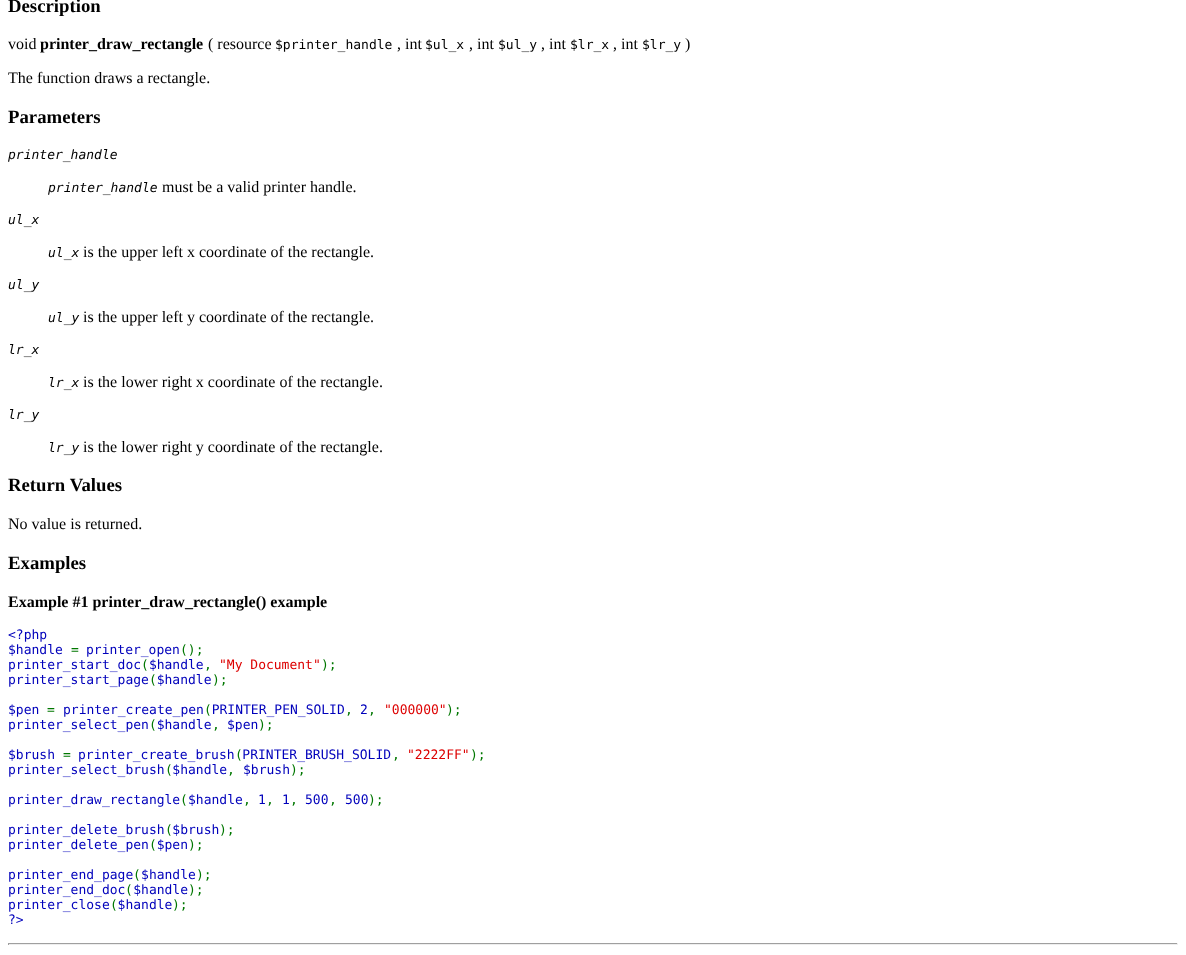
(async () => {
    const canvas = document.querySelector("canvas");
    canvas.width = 1186;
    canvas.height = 955;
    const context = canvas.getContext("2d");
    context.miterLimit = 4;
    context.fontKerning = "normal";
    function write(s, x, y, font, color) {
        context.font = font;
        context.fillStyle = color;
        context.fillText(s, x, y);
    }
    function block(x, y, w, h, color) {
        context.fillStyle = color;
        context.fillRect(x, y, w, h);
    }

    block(0, 0, 1186, 955, "rgb(255, 255, 255)");
    write("Description", 8, 12, "bold 18.75px Liberation Serif", "rgb(0, 0, 0)");
    write("void", 8, 49, "16px Liberation Serif", "rgb(0, 0, 0)");
    write("printer_draw_rectangle", 40, 49, "bold 16px Liberation Serif", "rgb(0, 0, 0)");
    write("( resource", 208, 49, "16px Liberation Serif", "rgb(0, 0, 0)");
    write("$printer_handle", 275, 49, "13px DejaVu Sans Mono", "rgb(0, 0, 0)");
    write(", int", 397, 49, "16px Liberation Serif", "rgb(0, 0, 0)");
    write("$ul_x", 425, 49, "13px DejaVu Sans Mono", "rgb(0, 0, 0)");
    write(", int", 469, 49, "16px Liberation Serif", "rgb(0, 0, 0)");
    write("$ul_y", 498, 49, "13px DejaVu Sans Mono", "rgb(0, 0, 0)");
    write(", int", 541, 49, "16px Liberation Serif", "rgb(0, 0, 0)");
    write("$lr_x", 570, 49, "13px DejaVu Sans Mono", "rgb(0, 0, 0)");
    write(", int", 613, 49, "16px Liberation Serif", "rgb(0, 0, 0)");
    write("$lr_y", 642, 49, "13px DejaVu Sans Mono", "rgb(0, 0, 0)");
    write(")", 685, 49, "16px Liberation Serif", "rgb(0, 0, 0)");
    write("The function draws a rectangle.", 8, 83, "16px Liberation Serif", "rgb(0, 0, 0)");
    write("Parameters", 8, 123, "bold 18.75px Liberation Serif", "rgb(0, 0, 0)");
    write("printer_handle", 8, 159, "italic 13px DejaVu Sans Mono", "rgb(0, 0, 0)");
    write("printer_handle", 48, 192, "italic 13px DejaVu Sans Mono", "rgb(0, 0, 0)");
    write("must be a valid printer handle.", 162, 192, "16px Liberation Serif", "rgb(0, 0, 0)");
    write("ul_x", 8, 224, "italic 13px DejaVu Sans Mono", "rgb(0, 0, 0)");
    write("ul_x", 48, 257, "italic 13px DejaVu Sans Mono", "rgb(0, 0, 0)");
    write("is the upper left x coordinate of the rectangle.", 83, 257, "16px Liberation Serif", "rgb(0, 0, 0)");
    write("ul_y", 8, 289, "italic 13px DejaVu Sans Mono", "rgb(0, 0, 0)");
    write("ul_y", 48, 322, "italic 13px DejaVu Sans Mono", "rgb(0, 0, 0)");
    write("is the upper left y coordinate of the rectangle.", 83, 322, "16px Liberation Serif", "rgb(0, 0, 0)");
    write("lr_x", 8, 354, "italic 13px DejaVu Sans Mono", "rgb(0, 0, 0)");
    write("lr_x", 48, 387, "italic 13px DejaVu Sans Mono", "rgb(0, 0, 0)");
    write("is the lower right x coordinate of the rectangle.", 83, 387, "16px Liberation Serif", "rgb(0, 0, 0)");
    write("lr_y", 8, 419, "italic 13px DejaVu Sans Mono", "rgb(0, 0, 0)");
    write("lr_y", 48, 452, "italic 13px DejaVu Sans Mono", "rgb(0, 0, 0)");
    write("is the lower right y coordinate of the rectangle.", 83, 452, "16px Liberation Serif", "rgb(0, 0, 0)");
    write("Return Values", 8, 491, "bold 18.75px Liberation Serif", "rgb(0, 0, 0)");
    write("No value is returned.", 8, 529, "16px Liberation Serif", "rgb(0, 0, 0)");
    write("Examples", 8, 569, "bold 18.75px Liberation Serif", "rgb(0, 0, 0)");
    write("Example #1 printer_draw_rectangle() example", 8, 607, "bold 16px Liberation Serif", "rgb(0, 0, 0)");
    write("<?php", 8, 639, "13px DejaVu Sans Mono", "rgb(0, 0, 187)");
    write("$handle", 8, 654, "13px DejaVu Sans Mono", "rgb(0, 0, 187)");
    write("=", 71, 654, "13px DejaVu Sans Mono", "rgb(0, 119, 0)");
    write("printer_open", 86, 654, "13px DejaVu Sans Mono", "rgb(0, 0, 187)");
    write("();", 180, 654, "13px DejaVu Sans Mono", "rgb(0, 119, 0)");
    write("printer_start_doc $handle", 8, 669, "13px DejaVu Sans Mono", "rgb(0, 0, 187)");
    write("(", 141, 669, "13px DejaVu Sans Mono", "rgb(0, 119, 0)");
    write(",", 204, 669, "13px DejaVu Sans Mono", "rgb(0, 119, 0)");
    write("\"My Document\"", 219, 669, "13px DejaVu Sans Mono", "rgb(221, 0, 0)");
    write(");", 321, 669, "13px DejaVu Sans Mono", "rgb(0, 119, 0)");
    write("printer_start_page $handle", 8, 684, "13px DejaVu Sans Mono", "rgb(0, 0, 187)");
    write("(", 149, 684, "13px DejaVu Sans Mono", "rgb(0, 119, 0)");
    write(");", 212, 684, "13px DejaVu Sans Mono", "rgb(0, 119, 0)");
    write("$pen", 8, 714, "13px DejaVu Sans Mono", "rgb(0, 0, 187)");
    write("printer_create_pen PRINTER_PEN_SOLID", 63, 714, "13px DejaVu Sans Mono", "rgb(0, 0, 187)");
    write("=", 47, 714, "13px DejaVu Sans Mono", "rgb(0, 119, 0)");
    write("(", 204, 714, "13px DejaVu Sans Mono", "rgb(0, 119, 0)");
    write("2", 360, 714, "13px DejaVu Sans Mono", "rgb(0, 0, 187)");
    write("\"000000\"", 384, 714, "13px DejaVu Sans Mono", "rgb(221, 0, 0)");
    write(");", 446, 714, "13px DejaVu Sans Mono", "rgb(0, 119, 0)");
    write(",", 345, 714, "13px DejaVu Sans Mono", "rgb(0, 119, 0)");
    write(",", 368, 714, "13px DejaVu Sans Mono", "rgb(0, 119, 0)");
    write("printer_select_pen $handle", 8, 729, "13px DejaVu Sans Mono", "rgb(0, 0, 187)");
    write("(", 149, 729, "13px DejaVu Sans Mono", "rgb(0, 119, 0)");
    write(",", 212, 729, "13px DejaVu Sans Mono", "rgb(0, 119, 0)");
    write("$pen", 227, 729, "13px DejaVu Sans Mono", "rgb(0, 0, 187)");
    write(");", 258, 729, "13px DejaVu Sans Mono", "rgb(0, 119, 0)");
    write("$brush", 8, 759, "13px DejaVu Sans Mono", "rgb(0, 0, 187)");
    write("printer_create_brush PRINTER_BRUSH_SOLID", 78, 759, "13px DejaVu Sans Mono", "rgb(0, 0, 187)");
    write("=", 63, 759, "13px DejaVu Sans Mono", "rgb(0, 119, 0)");
    write("(", 235, 759, "13px DejaVu Sans Mono", "rgb(0, 119, 0)");
    write("\"2222FF\"", 407, 759, "13px DejaVu Sans Mono", "rgb(221, 0, 0)");
    write(");", 470, 759, "13px DejaVu Sans Mono", "rgb(0, 119, 0)");
    write(",", 392, 759, "13px DejaVu Sans Mono", "rgb(0, 119, 0)");
    write("printer_select_brush $handle", 8, 774, "13px DejaVu Sans Mono", "rgb(0, 0, 187)");
    write("(", 165, 774, "13px DejaVu Sans Mono", "rgb(0, 119, 0)");
    write(",", 227, 774, "13px DejaVu Sans Mono", "rgb(0, 119, 0)");
    write("$brush", 243, 774, "13px DejaVu Sans Mono", "rgb(0, 0, 187)");
    write(");", 290, 774, "13px DejaVu Sans Mono", "rgb(0, 119, 0)");
    write("printer_draw_rectangle $handle", 8, 804, "13px DejaVu Sans Mono", "rgb(0, 0, 187)");
    write("(", 180, 804, "13px DejaVu Sans Mono", "rgb(0, 119, 0)");
    write(",", 243, 804, "13px DejaVu Sans Mono", "rgb(0, 119, 0)");
    write("1", 258, 804, "13px DejaVu Sans Mono", "rgb(0, 0, 187)");
    write(",", 266, 804, "13px DejaVu Sans Mono", "rgb(0, 119, 0)");
    write("1", 282, 804, "13px DejaVu Sans Mono", "rgb(0, 0, 187)");
    write(",", 290, 804, "13px DejaVu Sans Mono", "rgb(0, 119, 0)");
    write("500", 305, 804, "13px DejaVu Sans Mono", "rgb(0, 0, 187)");
    write(",", 329, 804, "13px DejaVu Sans Mono", "rgb(0, 119, 0)");
    write("500", 345, 804, "13px DejaVu Sans Mono", "rgb(0, 0, 187)");
    write(");", 368, 804, "13px DejaVu Sans Mono", "rgb(0, 119, 0)");
    write("printer_delete_brush $brush", 8, 834, "13px DejaVu Sans Mono", "rgb(0, 0, 187)");
    write("(", 165, 834, "13px DejaVu Sans Mono", "rgb(0, 119, 0)");
    write(");", 219, 834, "13px DejaVu Sans Mono", "rgb(0, 119, 0)");
    write("printer_delete_pen $pen", 8, 849, "13px DejaVu Sans Mono", "rgb(0, 0, 187)");
    write("(", 149, 849, "13px DejaVu Sans Mono", "rgb(0, 119, 0)");
    write(");", 188, 849, "13px DejaVu Sans Mono", "rgb(0, 119, 0)");
    write("printer_end_page $handle", 8, 879, "13px DejaVu Sans Mono", "rgb(0, 0, 187)");
    write("(", 133, 879, "13px DejaVu Sans Mono", "rgb(0, 119, 0)");
    write(");", 196, 879, "13px DejaVu Sans Mono", "rgb(0, 119, 0)");
    write("printer_end_doc $handle", 8, 894, "13px DejaVu Sans Mono", "rgb(0, 0, 187)");
    write("(", 125, 894, "13px DejaVu Sans Mono", "rgb(0, 119, 0)");
    write(");", 188, 894, "13px DejaVu Sans Mono", "rgb(0, 119, 0)");
    write("printer_close $handle", 8, 909, "13px DejaVu Sans Mono", "rgb(0, 0, 187)");
    write("(", 110, 909, "13px DejaVu Sans Mono", "rgb(0, 119, 0)");
    write(");", 172, 909, "13px DejaVu Sans Mono", "rgb(0, 119, 0)");
    write("?>", 8, 924, "13px DejaVu Sans Mono", "rgb(0, 0, 187)");
    block(8, 943, 1170, 1, "rgb(159, 159, 159)");
    block(1177, 943, 1, 2, "rgb(238, 238, 238)");
    block(8, 944, 1170, 1, "rgb(238, 238, 238)");
    block(8, 943, 1, 2, "rgb(159, 159, 159)");
})();
